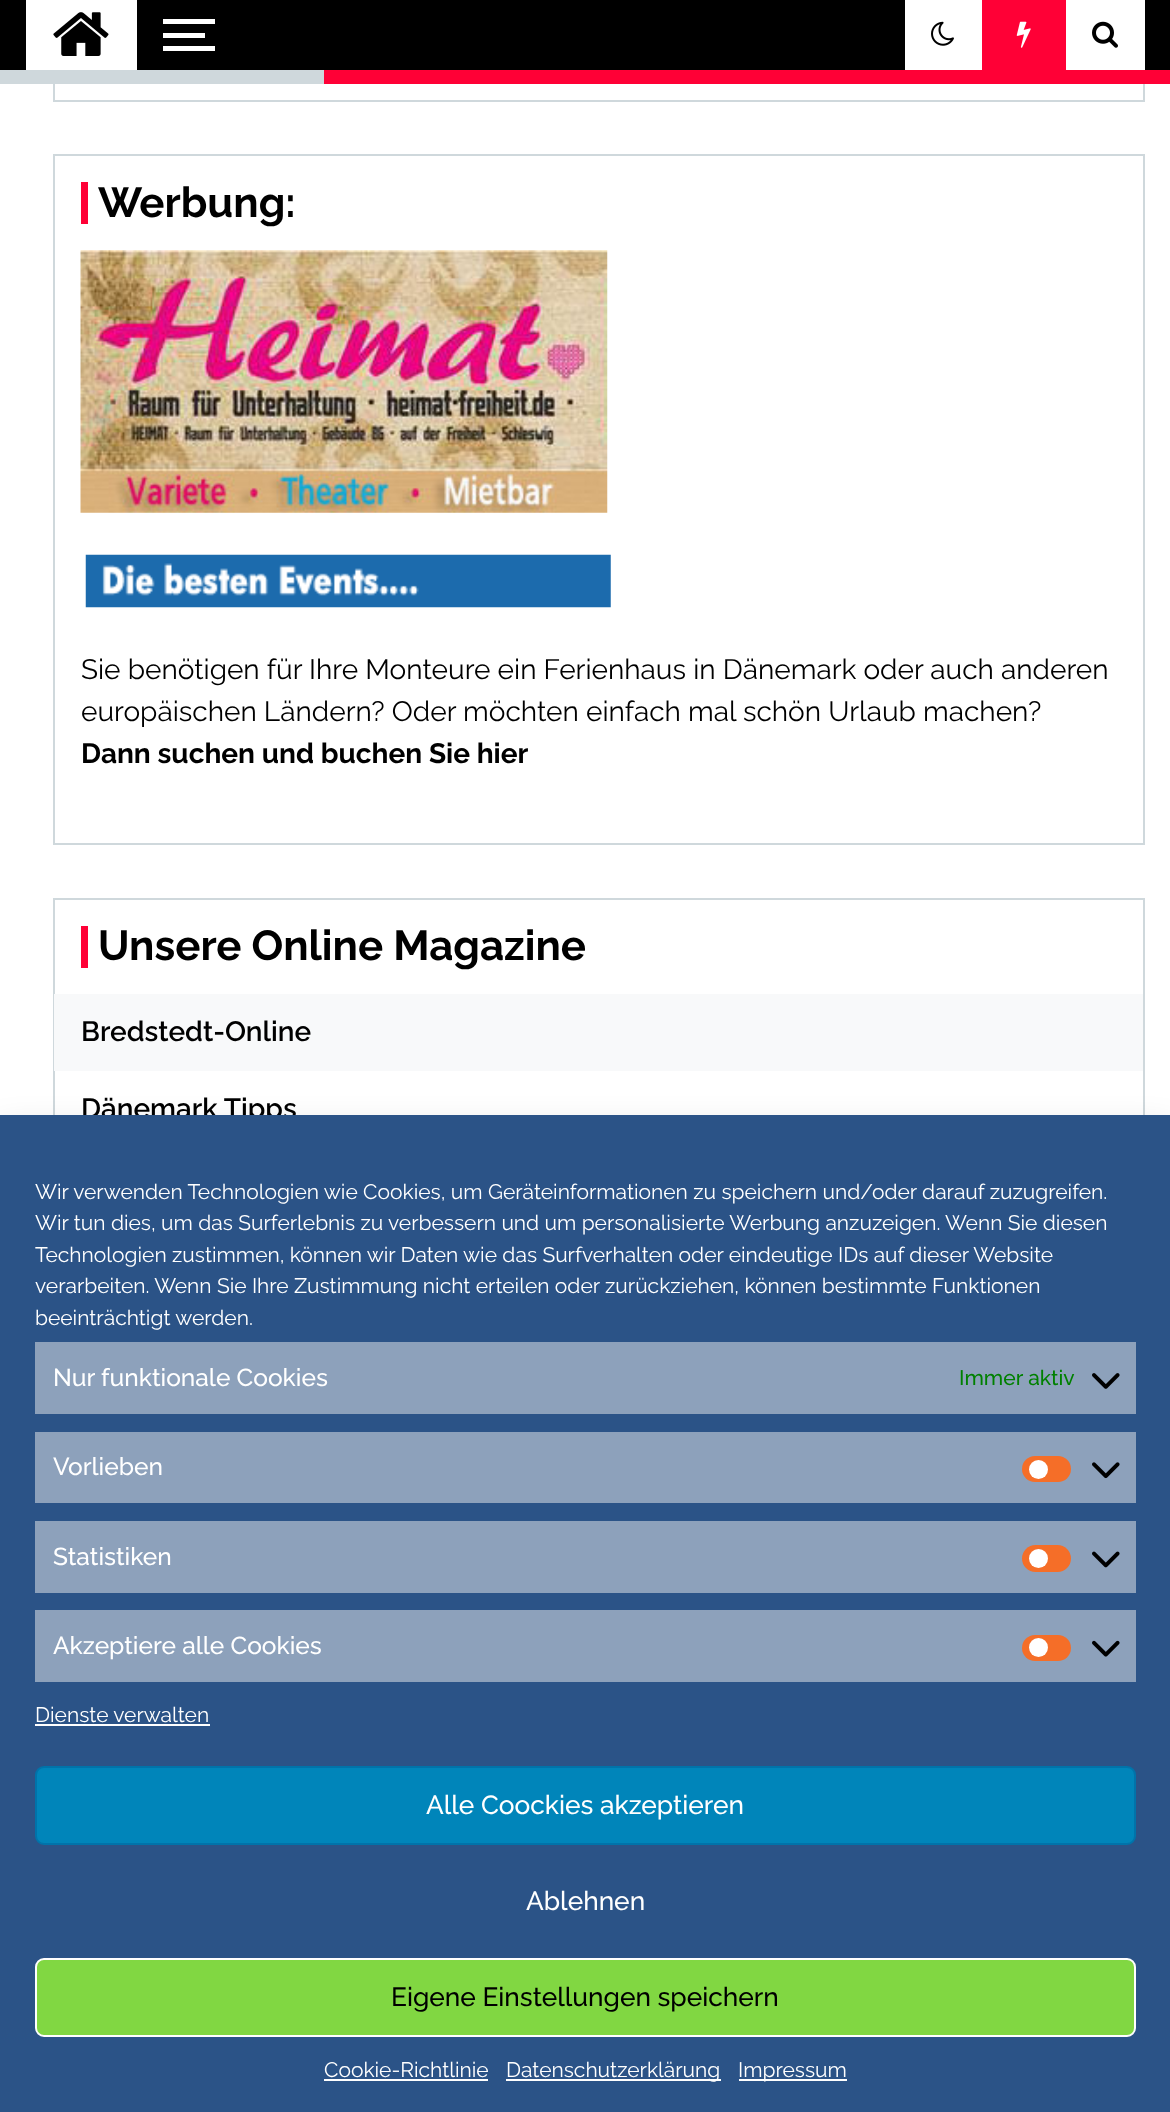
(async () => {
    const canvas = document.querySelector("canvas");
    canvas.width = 1170;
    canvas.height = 2112;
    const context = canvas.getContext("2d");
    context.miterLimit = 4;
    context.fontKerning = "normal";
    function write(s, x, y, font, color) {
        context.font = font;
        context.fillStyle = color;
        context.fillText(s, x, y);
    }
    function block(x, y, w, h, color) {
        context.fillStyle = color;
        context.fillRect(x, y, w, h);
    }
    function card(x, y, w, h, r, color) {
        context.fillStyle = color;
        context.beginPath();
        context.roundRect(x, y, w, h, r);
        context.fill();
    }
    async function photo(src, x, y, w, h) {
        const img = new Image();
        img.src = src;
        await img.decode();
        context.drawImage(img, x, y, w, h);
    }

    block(0, 0, 1170, 2112, "rgb(255, 255, 255)");
    context.strokeStyle = "rgb(207, 216, 220)";
    context.lineWidth = 2;
    context.strokeRect(54, -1, 1090, 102);
    block(0, 0, 1170, 70, "rgb(0, 0, 0)");
    block(26, 0, 111, 70, "rgb(255, 255, 255)");
    await photo("media/1.png", 53, 12, 56, 44);
    block(163, 19, 52, 5, "rgb(255, 255, 255)");
    block(163, 46, 52, 5, "rgb(255, 255, 255)");
    block(163, 33, 42, 5, "rgb(255, 255, 255)");
    block(905, 0, 77, 70, "rgb(255, 255, 255)");
    await photo("media/2.png", 931, 21, 23, 25);
    block(982, 0, 84, 70, "rgb(255, 0, 54)");
    await photo("media/3.png", 1016, 21, 15, 27);
    block(1066, 0, 79, 70, "rgb(255, 255, 255)");
    await photo("media/4.png", 1092, 21, 26, 27);
    block(0, 70, 324, 14, "rgb(207, 216, 220)");
    block(324, 70, 846, 14, "rgb(255, 0, 54)");
    context.strokeRect(54, 155, 1090, 689);
    block(81, 182, 7, 42, "rgb(255, 0, 54)");
    write("Werbung:", 98, 217, "100 42px 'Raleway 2'", "rgb(0, 0, 0)");
    await photo("media/5.png", 80, 250, 528, 263);
    await photo("media/6.png", 85, 554, 526, 54);
    write("Sie benötigen für Ihre Monteure ein Ferienhaus in Dänemark oder auch anderen", 81, 679, "100 28px Raleway", "rgb(0, 0, 0)");
    write("europäischen Ländern? Oder möchten einfach mal schön Urlaub machen?", 81, 721, "100 28px Raleway", "rgb(0, 0, 0)");
    write("Dann suchen und buchen Sie hier", 81, 763, "100 28px 'Raleway 2'", "rgb(0, 0, 0)");
    context.strokeRect(54, 899, 1090, 481);
    block(81, 926, 7, 42, "rgb(255, 0, 54)");
    write("Unsere Online Magazine", 98, 960, "100 42px 'Raleway 2'", "rgb(0, 0, 0)");
    block(54, 994, 1089, 77, "rgb(248, 249, 250)");
    write("Bredstedt-Online", 81, 1041, "100 28px 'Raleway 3'", "rgb(0, 0, 0)");
    write("Dänemark Tipps", 81, 1118, "100 28px 'Raleway 3'", "rgb(0, 0, 0)");
    context.fillStyle = "rgba(0, 0, 0, 0.19)";
    context.filter = "blur(17.5px)";
    context.beginPath();
    context.rect(0, 1132, 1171, 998);
    context.fill();
    context.filter = "none";
    block(0, 1115, 1170, 997, "rgb(43, 83, 135)");
    write("Wir verwenden Technologien wie Cookies, um Geräteinformationen zu speichern und/oder darauf zuzugreifen.", 35, 1199, "100 21px Raleway", "rgb(255, 255, 255)");
    write("Wir tun dies, um das Surferlebnis zu verbessern und um personalisierte Werbung anzuzeigen. Wenn Sie diesen", 35, 1230, "100 21px Raleway", "rgb(255, 255, 255)");
    write("Technologien zustimmen, können wir Daten wie das Surfverhalten oder eindeutige IDs auf dieser Website", 35, 1262, "100 21px Raleway", "rgb(255, 255, 255)");
    write("verarbeiten. Wenn Sie Ihre Zustimmung nicht erteilen oder zurückziehen, können bestimmte Funktionen", 35, 1293, "100 21px Raleway", "rgb(255, 255, 255)");
    write("beeinträchtigt werden.", 35, 1325, "100 21px Raleway", "rgb(255, 255, 255)");
    block(35, 1342, 1101, 72, "rgb(141, 161, 187)");
    write("Nur funktionale Cookies", 53, 1386, "100 24.5px 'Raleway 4'", "rgb(255, 255, 255)");
    write("Immer aktiv", 959, 1385, "100 21px 'Raleway 4'", "rgb(0, 128, 0)");
    await photo("media/7.png", 1092, 1373, 28, 16);
    block(35, 1432, 1101, 71, "rgb(141, 161, 187)");
    write("Vorlieben", 53, 1475, "100 24.5px 'Raleway 4'", "rgb(255, 255, 255)");
    card(1022, 1456, 49, 26, 13, "rgb(245, 110, 40)");
    context.fillStyle = "rgb(255, 255, 255)";
    context.beginPath();
    context.arc(1038.5, 1469.5, 9.5, 0, Math.PI * 2);
    context.fill();
    await photo("media/8.png", 1092, 1462, 28, 17);
    block(35, 1521, 1101, 72, "rgb(141, 161, 187)");
    write("Statistiken", 53, 1565, "100 24.5px 'Raleway 4'", "rgb(255, 255, 255)");
    card(1022, 1545, 49, 27, 13.5, "rgb(245, 110, 40)");
    context.fillStyle = "rgb(255, 255, 255)";
    context.beginPath();
    context.arc(1038.5, 1558.5, 9.5, 0, Math.PI * 2);
    context.fill();
    await photo("media/9.png", 1092, 1551, 28, 17);
    block(35, 1610, 1101, 72, "rgb(141, 161, 187)");
    write("Akzeptiere alle Cookies", 53, 1654, "100 24.5px 'Raleway 4'", "rgb(255, 255, 255)");
    card(1022, 1635, 49, 26, 13, "rgb(245, 110, 40)");
    context.fillStyle = "rgb(255, 255, 255)";
    context.beginPath();
    context.arc(1038.5, 1647.5, 9.5, 0, Math.PI * 2);
    context.fill();
    await photo("media/10.png", 1092, 1640, 28, 17);
    write("Dienste verwalten", 35, 1722, "100 21px Raleway", "rgb(255, 255, 255)");
    block(35, 1724, 175, 2, "rgb(255, 255, 255)");
    context.fillStyle = "rgb(0, 133, 186)";
    context.beginPath();
    context.roundRect(36, 1767, 1099, 77, 8);
    context.fill();
    context.strokeStyle = "rgb(0, 115, 170)";
    context.stroke();
    write("Alle Coockies akzeptieren", 426, 1814, "100 26.25px 'Raleway 4'", "rgb(255, 255, 255)");
    write("Ablehnen", 526, 1910, "100 26.25px 'Raleway 4'", "rgb(255, 255, 255)");
    context.fillStyle = "rgb(129, 215, 66)";
    context.beginPath();
    context.roundRect(36, 1959, 1099, 77, 8);
    context.fill();
    context.strokeStyle = "rgb(255, 255, 255)";
    context.stroke();
    write("Eigene Einstellungen speichern", 391, 2006, "100 26.25px 'Raleway 4'", "rgb(0, 0, 0)");
    write("Cookie-Richtlinie", 324, 2077, "100 21px Raleway", "rgb(255, 255, 255)");
    block(324, 2079, 164, 2, "rgb(255, 255, 255)");
    block(506, 2079, 215, 2, "rgb(255, 255, 255)");
    write("Datenschutzerklärung", 506, 2077, "100 21px Raleway", "rgb(255, 255, 255)");
    block(739, 2079, 108, 2, "rgb(255, 255, 255)");
    write("Impressum", 738, 2077, "100 21px Raleway", "rgb(255, 255, 255)");
})();
